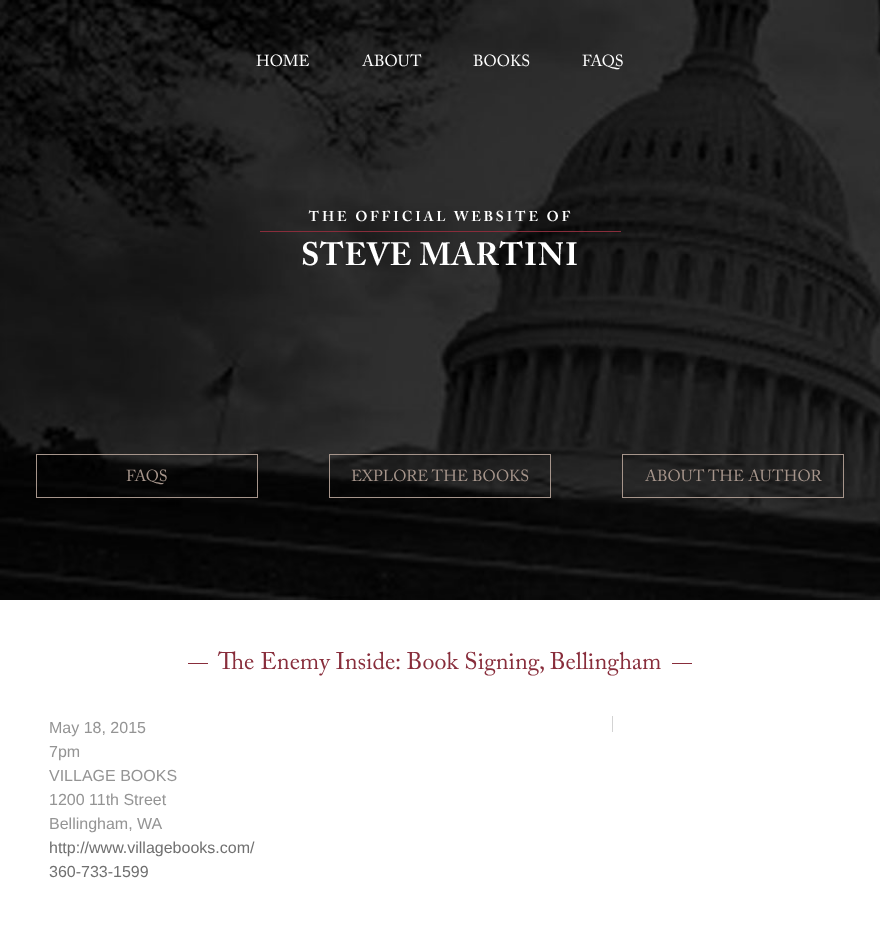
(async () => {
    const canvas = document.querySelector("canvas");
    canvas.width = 880;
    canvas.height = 927;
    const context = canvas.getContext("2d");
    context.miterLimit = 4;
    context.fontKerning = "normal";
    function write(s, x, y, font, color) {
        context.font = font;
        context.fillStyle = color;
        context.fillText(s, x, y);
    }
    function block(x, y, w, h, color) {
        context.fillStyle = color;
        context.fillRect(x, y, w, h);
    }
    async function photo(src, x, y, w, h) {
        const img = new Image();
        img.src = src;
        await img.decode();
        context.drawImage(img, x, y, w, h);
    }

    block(0, 0, 880, 927, "rgb(255, 255, 255)");
    await photo("media/1.png", 0, 0, 880, 600);
    write("HOME", 256, 66, "16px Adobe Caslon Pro", "rgb(255, 255, 255)");
    write("ABOUT", 362, 66, "16px Adobe Caslon Pro", "rgb(255, 255, 255)");
    write("BOOKS", 473, 66, "16px Adobe Caslon Pro", "rgb(255, 255, 255)");
    write("FAQS", 582, 66, "16px Adobe Caslon Pro", "rgb(255, 255, 255)");
    await photo("media/2.png", 260, 210, 361, 56);
    context.strokeStyle = "rgb(166, 149, 139)";
    context.strokeRect(36.5, 454.5, 221, 43);
    write("FAQS", 126, 481, "16px Adobe Caslon Pro", "rgb(166, 149, 139)");
    context.strokeRect(329.5, 454.5, 221, 43);
    write("EXPLORE THE BOOKS", 351, 481, "16px Adobe Caslon Pro", "rgb(166, 149, 139)");
    context.strokeRect(622.5, 454.5, 221, 43);
    write("ABOUT THE AUTHOR", 645, 481, "16px Adobe Caslon Pro", "rgb(166, 149, 139)");
    block(188, 663, 20, 1, "rgb(136, 45, 59)");
    write("The Enemy Inside: Book Signing, Bellingham", 218, 669, "24px Adobe Caslon Pro", "rgb(136, 45, 59)");
    block(672, 663, 20, 1, "rgb(136, 45, 59)");
    write("May 18, 2015", 49, 733, "16px Liberation Sans", "rgb(148, 148, 148)");
    write("7pm", 49, 757, "16px Liberation Sans", "rgb(148, 148, 148)");
    write("VILLAGE BOOKS", 49, 781, "16px Liberation Sans", "rgb(148, 148, 148)");
    write("1200 11th Street", 49, 805, "16px Liberation Sans", "rgb(148, 148, 148)");
    write("Bellingham, WA", 49, 829, "16px Liberation Sans", "rgb(148, 148, 148)");
    write("http://www.villagebooks.com/", 49, 853, "16px Liberation Sans", "rgb(112, 112, 112)");
    write("360-733-1599", 49, 877, "16px Liberation Sans", "rgb(112, 112, 112)");
    block(612, 716, 1, 16, "rgb(211, 211, 211)");
})();
